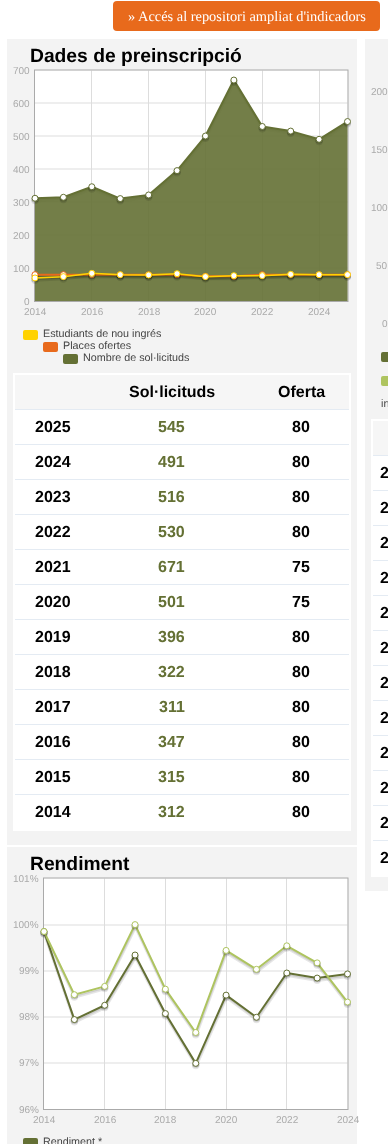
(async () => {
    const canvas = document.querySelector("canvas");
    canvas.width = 388;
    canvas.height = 1144;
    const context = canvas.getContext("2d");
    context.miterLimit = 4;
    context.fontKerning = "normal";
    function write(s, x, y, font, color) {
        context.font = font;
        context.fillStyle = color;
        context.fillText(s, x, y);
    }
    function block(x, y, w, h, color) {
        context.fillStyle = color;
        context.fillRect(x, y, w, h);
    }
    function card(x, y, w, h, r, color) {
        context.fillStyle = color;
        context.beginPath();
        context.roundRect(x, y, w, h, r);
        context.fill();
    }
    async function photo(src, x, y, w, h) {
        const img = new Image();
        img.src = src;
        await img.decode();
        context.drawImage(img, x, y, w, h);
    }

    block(0, 0, 388, 1144, "rgb(255, 255, 255)");
    card(113, 1, 267, 30, 4, "rgb(232, 106, 28)");
    write("» Accés al repositori ampliat d'indicadors", 128, 21, "14.4px Liberation Serif", "rgb(255, 255, 255)");
    block(7, 39, 350, 806, "rgb(243, 243, 243)");
    write("Dades de preinscripció", 30, 62, "bold 19.25px Liberation Sans", "rgb(0, 0, 0)");
    write("700", 13, 74, "10px Liberation Sans", "rgb(170, 170, 170)");
    write("600", 13, 107, "10px Liberation Sans", "rgb(170, 170, 170)");
    write("500", 13, 140, "10px Liberation Sans", "rgb(170, 170, 170)");
    write("400", 13, 173, "10px Liberation Sans", "rgb(170, 170, 170)");
    write("300", 13, 206, "10px Liberation Sans", "rgb(170, 170, 170)");
    write("200", 13, 239, "10px Liberation Sans", "rgb(170, 170, 170)");
    write("100", 13, 272, "10px Liberation Sans", "rgb(170, 170, 170)");
    write("0", 24, 305, "10px Liberation Sans", "rgb(170, 170, 170)");
    write("2014", 24, 315, "10px Liberation Sans", "rgb(170, 170, 170)");
    write("2016", 81, 315, "10px Liberation Sans", "rgb(170, 170, 170)");
    write("2018", 138, 315, "10px Liberation Sans", "rgb(170, 170, 170)");
    write("2020", 194, 315, "10px Liberation Sans", "rgb(170, 170, 170)");
    write("2022", 251, 315, "10px Liberation Sans", "rgb(170, 170, 170)");
    write("2024", 308, 315, "10px Liberation Sans", "rgb(170, 170, 170)");
    await photo("media/1.png", 31, 69, 320, 233);
    card(23, 330, 15, 10, 2, "rgb(255, 210, 0)");
    write("Estudiants de nou ingrés", 43, 337, "10.75px Liberation Sans", "rgb(68, 68, 68)");
    card(43, 342, 15, 10, 2, "rgb(232, 106, 28)");
    write("Places ofertes", 63, 349, "10.75px Liberation Sans", "rgb(68, 68, 68)");
    card(63, 354, 15, 10, 2, "rgb(100, 112, 52)");
    write("Nombre de sol·licituds", 83, 361, "10.75px Liberation Sans", "rgb(68, 68, 68)");
    block(15, 410, 334, 419, "rgb(255, 255, 255)");
    block(13, 373, 338, 2, "rgb(255, 255, 255)");
    block(14, 409, 337, 1, "rgb(228, 235, 243)");
    block(14, 444, 337, 1, "rgb(228, 235, 243)");
    block(14, 479, 337, 1, "rgb(228, 235, 243)");
    block(14, 514, 337, 1, "rgb(228, 235, 243)");
    block(14, 549, 337, 1, "rgb(228, 235, 243)");
    block(14, 584, 337, 1, "rgb(228, 235, 243)");
    block(14, 619, 337, 1, "rgb(228, 235, 243)");
    block(14, 654, 337, 1, "rgb(228, 235, 243)");
    block(14, 689, 337, 1, "rgb(228, 235, 243)");
    block(14, 724, 337, 1, "rgb(228, 235, 243)");
    block(14, 759, 337, 1, "rgb(228, 235, 243)");
    block(14, 794, 337, 1, "rgb(228, 235, 243)");
    block(349, 373, 2, 458, "rgb(255, 255, 255)");
    block(13, 829, 338, 2, "rgb(255, 255, 255)");
    block(13, 373, 2, 458, "rgb(255, 255, 255)");
    block(15, 375, 334, 34, "rgb(246, 246, 246)");
    write("Sol·licituds", 129, 397, "bold 16px Liberation Sans", "rgb(0, 0, 0)");
    write("Oferta", 278, 397, "bold 16px Liberation Sans", "rgb(0, 0, 0)");
    write("2025", 35, 432, "bold 16px Liberation Sans", "rgb(0, 0, 0)");
    write("545", 158, 432, "bold 16px Liberation Sans", "rgb(100, 112, 52)");
    write("80", 292, 432, "bold 16px Liberation Sans", "rgb(0, 0, 0)");
    write("2024", 35, 467, "bold 16px Liberation Sans", "rgb(0, 0, 0)");
    write("491", 158, 467, "bold 16px Liberation Sans", "rgb(100, 112, 52)");
    write("80", 292, 467, "bold 16px Liberation Sans", "rgb(0, 0, 0)");
    write("2023", 35, 502, "bold 16px Liberation Sans", "rgb(0, 0, 0)");
    write("516", 158, 502, "bold 16px Liberation Sans", "rgb(100, 112, 52)");
    write("80", 292, 502, "bold 16px Liberation Sans", "rgb(0, 0, 0)");
    write("2022", 35, 537, "bold 16px Liberation Sans", "rgb(0, 0, 0)");
    write("530", 158, 537, "bold 16px Liberation Sans", "rgb(100, 112, 52)");
    write("80", 292, 537, "bold 16px Liberation Sans", "rgb(0, 0, 0)");
    write("2021", 35, 572, "bold 16px Liberation Sans", "rgb(0, 0, 0)");
    write("671", 158, 572, "bold 16px Liberation Sans", "rgb(100, 112, 52)");
    write("75", 292, 572, "bold 16px Liberation Sans", "rgb(0, 0, 0)");
    write("2020", 35, 607, "bold 16px Liberation Sans", "rgb(0, 0, 0)");
    write("501", 158, 607, "bold 16px Liberation Sans", "rgb(100, 112, 52)");
    write("75", 292, 607, "bold 16px Liberation Sans", "rgb(0, 0, 0)");
    write("2019", 35, 642, "bold 16px Liberation Sans", "rgb(0, 0, 0)");
    write("396", 158, 642, "bold 16px Liberation Sans", "rgb(100, 112, 52)");
    write("80", 292, 642, "bold 16px Liberation Sans", "rgb(0, 0, 0)");
    write("2018", 35, 677, "bold 16px Liberation Sans", "rgb(0, 0, 0)");
    write("322", 158, 677, "bold 16px Liberation Sans", "rgb(100, 112, 52)");
    write("80", 292, 677, "bold 16px Liberation Sans", "rgb(0, 0, 0)");
    write("2017", 35, 712, "bold 16px Liberation Sans", "rgb(0, 0, 0)");
    write("311", 159, 712, "bold 16px Liberation Sans", "rgb(100, 112, 52)");
    write("80", 292, 712, "bold 16px Liberation Sans", "rgb(0, 0, 0)");
    write("2016", 35, 747, "bold 16px Liberation Sans", "rgb(0, 0, 0)");
    write("347", 158, 747, "bold 16px Liberation Sans", "rgb(100, 112, 52)");
    write("80", 292, 747, "bold 16px Liberation Sans", "rgb(0, 0, 0)");
    write("2015", 35, 782, "bold 16px Liberation Sans", "rgb(0, 0, 0)");
    write("315", 158, 782, "bold 16px Liberation Sans", "rgb(100, 112, 52)");
    write("80", 292, 782, "bold 16px Liberation Sans", "rgb(0, 0, 0)");
    write("2014", 35, 817, "bold 16px Liberation Sans", "rgb(0, 0, 0)");
    write("312", 158, 817, "bold 16px Liberation Sans", "rgb(100, 112, 52)");
    write("80", 292, 817, "bold 16px Liberation Sans", "rgb(0, 0, 0)");
    block(7, 847, 350, 297, "rgb(243, 243, 243)");
    write("Rendiment", 30, 870, "bold 19.25px Liberation Sans", "rgb(0, 0, 0)");
    write("101%", 13, 882, "10px Liberation Sans", "rgb(170, 170, 170)");
    write("100%", 13, 928, "10px Liberation Sans", "rgb(170, 170, 170)");
    write("99%", 19, 974, "10px Liberation Sans", "rgb(170, 170, 170)");
    write("98%", 19, 1020, "10px Liberation Sans", "rgb(170, 170, 170)");
    write("97%", 19, 1066, "10px Liberation Sans", "rgb(170, 170, 170)");
    write("96%", 19, 1113, "10px Liberation Sans", "rgb(170, 170, 170)");
    write("2014", 33, 1123, "10px Liberation Sans", "rgb(170, 170, 170)");
    write("2016", 94, 1123, "10px Liberation Sans", "rgb(170, 170, 170)");
    write("2018", 154, 1123, "10px Liberation Sans", "rgb(170, 170, 170)");
    write("2020", 215, 1123, "10px Liberation Sans", "rgb(170, 170, 170)");
    write("2022", 276, 1123, "10px Liberation Sans", "rgb(170, 170, 170)");
    write("2024", 337, 1123, "10px Liberation Sans", "rgb(170, 170, 170)");
    await photo("media/2.png", 40, 877, 311, 233);
    card(23, 1138, 15, 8, 2, "rgb(100, 112, 52)");
    write("Rendiment *", 43, 1145, "10.75px Liberation Sans", "rgb(68, 68, 68)");
    block(365, 39, 23, 852, "rgb(243, 243, 243)");
    write("200", 371, 95, "10px Liberation Sans", "rgb(170, 170, 170)");
    write("150", 371, 153, "10px Liberation Sans", "rgb(170, 170, 170)");
    write("100", 371, 211, "10px Liberation Sans", "rgb(170, 170, 170)");
    write("50", 376, 269, "10px Liberation Sans", "rgb(170, 170, 170)");
    write("0", 382, 327, "10px Liberation Sans", "rgb(170, 170, 170)");
    card(381, 352, 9, 10, 2, "rgb(100, 112, 52)");
    card(381, 376, 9, 10, 2, "rgb(174, 196, 95)");
    write("in", 381, 407, "10.75px Liberation Sans", "rgb(68, 68, 68)");
    block(373, 456, 15, 419, "rgb(255, 255, 255)");
    block(371, 419, 17, 2, "rgb(255, 255, 255)");
    block(371, 875, 17, 2, "rgb(255, 255, 255)");
    block(372, 455, 16, 1, "rgb(228, 235, 243)");
    block(372, 490, 16, 1, "rgb(228, 235, 243)");
    block(372, 525, 16, 1, "rgb(228, 235, 243)");
    block(372, 560, 16, 1, "rgb(228, 235, 243)");
    block(372, 595, 16, 1, "rgb(228, 235, 243)");
    block(372, 630, 16, 1, "rgb(228, 235, 243)");
    block(372, 665, 16, 1, "rgb(228, 235, 243)");
    block(372, 700, 16, 1, "rgb(228, 235, 243)");
    block(372, 735, 16, 1, "rgb(228, 235, 243)");
    block(372, 770, 16, 1, "rgb(228, 235, 243)");
    block(372, 805, 16, 1, "rgb(228, 235, 243)");
    block(372, 840, 16, 1, "rgb(228, 235, 243)");
    block(371, 419, 2, 458, "rgb(255, 255, 255)");
    block(373, 421, 15, 34, "rgb(246, 246, 246)");
    write("2", 380, 478, "bold 16px Liberation Sans", "rgb(0, 0, 0)");
    write("2", 380, 513, "bold 16px Liberation Sans", "rgb(0, 0, 0)");
    write("2", 380, 548, "bold 16px Liberation Sans", "rgb(0, 0, 0)");
    write("2", 380, 583, "bold 16px Liberation Sans", "rgb(0, 0, 0)");
    write("2", 380, 618, "bold 16px Liberation Sans", "rgb(0, 0, 0)");
    write("2", 380, 653, "bold 16px Liberation Sans", "rgb(0, 0, 0)");
    write("2", 380, 688, "bold 16px Liberation Sans", "rgb(0, 0, 0)");
    write("2", 380, 723, "bold 16px Liberation Sans", "rgb(0, 0, 0)");
    write("2", 380, 758, "bold 16px Liberation Sans", "rgb(0, 0, 0)");
    write("2", 380, 793, "bold 16px Liberation Sans", "rgb(0, 0, 0)");
    write("2", 380, 828, "bold 16px Liberation Sans", "rgb(0, 0, 0)");
    write("2", 380, 863, "bold 16px Liberation Sans", "rgb(0, 0, 0)");
})();
